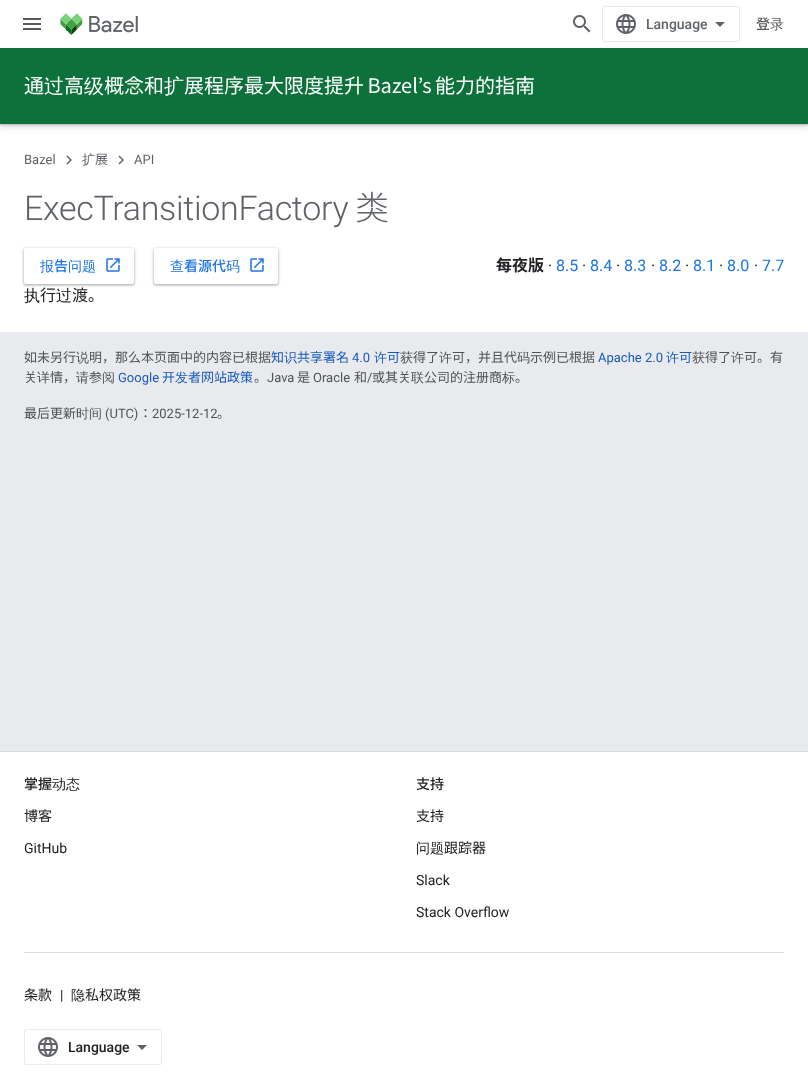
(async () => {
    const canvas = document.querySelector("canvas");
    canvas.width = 808;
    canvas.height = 1089;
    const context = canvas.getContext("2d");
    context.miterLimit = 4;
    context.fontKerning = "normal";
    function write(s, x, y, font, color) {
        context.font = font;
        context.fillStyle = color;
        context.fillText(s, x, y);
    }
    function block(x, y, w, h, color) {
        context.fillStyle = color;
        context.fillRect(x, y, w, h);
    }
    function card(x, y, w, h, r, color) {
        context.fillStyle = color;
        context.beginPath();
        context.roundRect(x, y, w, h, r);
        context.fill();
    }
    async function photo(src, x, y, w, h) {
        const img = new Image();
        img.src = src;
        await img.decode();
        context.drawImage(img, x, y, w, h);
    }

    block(0, 0, 808, 1089, "rgb(232, 234, 237)");
    block(0, 124, 808, 208, "rgb(255, 255, 255)");
    context.fillStyle = "rgba(60, 64, 67, 0.15)";
    context.filter = "blur(3px)";
    context.beginPath();
    context.rect(-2, 48, 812, 80);
    context.fill();
    context.filter = "none";
    context.fillStyle = "rgba(60, 64, 67, 0.3)";
    context.filter = "blur(1px)";
    context.beginPath();
    context.rect(0, 49, 808, 76);
    context.fill();
    context.filter = "none";
    block(0, 0, 808, 48, "rgb(255, 255, 255)");
    await photo("media/1.png", 23, 18, 18, 12);
    await photo("media/2.png", 60, 13, 78, 22);
    await photo("media/3.png", 573, 15, 18, 18);
    context.beginPath();
    context.roundRect(602.5, 6.5, 137, 35, 1.5);
    context.strokeStyle = "rgb(232, 234, 237)";
    context.stroke();
    await photo("media/4.png", 616, 14, 20, 20);
    write("Language", 646, 29, "500 14px Roboto", "rgb(95, 99, 104)");
    context.beginPath();
    context.moveTo(720, 27);
    context.lineTo(715, 22);
    context.lineTo(725, 22);
    context.closePath();
    context.fill();
    write("登", 756, 29, "500 14px Noto Sans JP", "rgb(89, 89, 89)");
    write("录", 770, 29, "500 14px WenQuanYi Zen Hei", "rgb(89, 89, 89)");
    block(0, 48, 808, 76, "rgb(12, 113, 58)");
    write("通", 24, 93, "20px Noto Sans JP", "rgb(255, 255, 255)");
    write("过", 44, 93, "500 20px WenQuanYi Zen Hei", "rgb(255, 255, 255)");
    write("高", 64, 93, "20px Noto Sans JP", "rgb(255, 255, 255)");
    write("级", 84, 93, "500 20px WenQuanYi Zen Hei", "rgb(255, 255, 255)");
    write("概念和", 104, 93, "20px Noto Sans JP", "rgb(255, 255, 255)");
    write("扩", 164, 93, "500 20px WenQuanYi Zen Hei", "rgb(255, 255, 255)");
    context.wordSpacing = "-1px";
    write("展程序最大限度提升 Bazel’s 能力的指南", 184, 93, "20px Noto Sans JP", "rgb(255, 255, 255)");
    context.wordSpacing = "0px";
    write("Bazel", 24, 164, "13px Roboto", "rgb(95, 99, 104)");
    await photo("media/5.png", 66, 155, 6, 10);
    write("扩", 82, 164, "500 13px WenQuanYi Zen Hei", "rgb(95, 99, 104)");
    write("展", 95, 164, "13px Noto Sans JP", "rgb(95, 99, 104)");
    await photo("media/5.png", 118, 155, 6, 10);
    write("API", 134, 164, "13px Roboto", "rgb(95, 99, 104)");
    context.letterSpacing = "-0.3px";
    write("ExecTransitionFactory", 24, 220, "300 34px Roboto", "rgb(95, 99, 104)");
    write("类", 355, 220, "300 34px Noto Sans JP", "rgb(95, 99, 104)");
    context.fillStyle = "rgba(60, 64, 67, 0.15)";
    context.filter = "blur(1.5px)";
    context.beginPath();
    context.roundRect(23, 248, 112, 38, 3);
    context.fill();
    context.filter = "none";
    context.fillStyle = "rgba(60, 64, 67, 0.3)";
    context.filter = "blur(1px)";
    context.beginPath();
    context.roundRect(24, 249, 110, 36, 2);
    context.fill();
    context.filter = "none";
    card(24, 248, 110, 36, 2, "rgb(255, 255, 255)");
    context.letterSpacing = "0px";
    write("报", 40, 271, "500 14px WenQuanYi Zen Hei", "rgb(26, 115, 232)");
    write("告", 54, 271, "500 14px Noto Sans JP", "rgb(26, 115, 232)");
    write("问题", 68, 271, "500 14px WenQuanYi Zen Hei", "rgb(26, 115, 232)");
    await photo("media/6.png", 106, 258, 14, 14);
    context.fillStyle = "rgba(60, 64, 67, 0.15)";
    context.filter = "blur(1.5px)";
    context.beginPath();
    context.roundRect(153, 248, 126, 38, 3);
    context.fill();
    context.filter = "none";
    context.fillStyle = "rgba(60, 64, 67, 0.3)";
    context.filter = "blur(1px)";
    context.beginPath();
    context.roundRect(154, 249, 124, 36, 2);
    context.fill();
    context.filter = "none";
    card(154, 248, 124, 36, 2, "rgb(255, 255, 255)");
    write("查", 170, 271, "500 14px WenQuanYi Zen Hei", "rgb(26, 115, 232)");
    write("看源代", 184, 271, "500 14px Noto Sans JP", "rgb(26, 115, 232)");
    write("码", 226, 271, "500 14px WenQuanYi Zen Hei", "rgb(26, 115, 232)");
    await photo("media/6.png", 250, 258, 14, 14);
    write("每夜版", 496, 271, "bold 16px Noto Sans JP", "rgb(32, 33, 36)");
    write("·", 548, 271, "16px Roboto", "rgb(32, 33, 36)");
    write("8.5", 556, 271, "16px Roboto", "rgb(26, 115, 232)");
    write("·", 582, 271, "16px Roboto", "rgb(32, 33, 36)");
    write("8.4", 590, 271, "16px Roboto", "rgb(26, 115, 232)");
    write("·", 616, 271, "16px Roboto", "rgb(32, 33, 36)");
    write("8.3", 624, 271, "16px Roboto", "rgb(26, 115, 232)");
    write("·", 651, 271, "16px Roboto", "rgb(32, 33, 36)");
    write("8.2", 659, 271, "16px Roboto", "rgb(26, 115, 232)");
    write("·", 685, 271, "16px Roboto", "rgb(32, 33, 36)");
    write("8.1", 693, 271, "16px Roboto", "rgb(26, 115, 232)");
    write("·", 719, 271, "16px Roboto", "rgb(32, 33, 36)");
    write("8.0", 727, 271, "16px Roboto", "rgb(26, 115, 232)");
    write("·", 754, 271, "16px Roboto", "rgb(32, 33, 36)");
    write("7.7", 762, 271, "16px Roboto", "rgb(26, 115, 232)");
    write("执", 24, 301, "500 16px WenQuanYi Zen Hei", "rgb(32, 33, 36)");
    write("行", 40, 301, "16px Noto Sans JP", "rgb(32, 33, 36)");
    write("过", 56, 301, "500 16px WenQuanYi Zen Hei", "rgb(32, 33, 36)");
    write("渡。", 72, 301, "16px Noto Sans JP", "rgb(32, 33, 36)");
    write("如未另行", 24, 362, "13px Noto Sans JP", "rgb(81, 82, 83)");
    write("说", 76, 362, "500 13px WenQuanYi Zen Hei", "rgb(81, 82, 83)");
    write("明，那么本页面中的内容已根据", 89, 362, "13px Noto Sans JP", "rgb(81, 82, 83)");
    write("知", 271, 362, "13px Noto Sans JP", "rgb(24, 90, 188)");
    write("识", 284, 362, "500 13px WenQuanYi Zen Hei", "rgb(24, 90, 188)");
    write("共享署名", 297, 362, "13px Noto Sans JP", "rgb(24, 90, 188)");
    write("4.0", 352, 362, "13px Roboto", "rgb(24, 90, 188)");
    write("许", 374, 362, "500 13px WenQuanYi Zen Hei", "rgb(24, 90, 188)");
    write("可", 387, 362, "13px Noto Sans JP", "rgb(24, 90, 188)");
    write("获", 400, 362, "500 13px WenQuanYi Zen Hei", "rgb(81, 82, 83)");
    write("得了", 413, 362, "13px Noto Sans JP", "rgb(81, 82, 83)");
    write("许", 439, 362, "500 13px WenQuanYi Zen Hei", "rgb(81, 82, 83)");
    write("可，并且代", 452, 362, "13px Noto Sans JP", "rgb(81, 82, 83)");
    write("码", 517, 362, "500 13px WenQuanYi Zen Hei", "rgb(81, 82, 83)");
    write("示例已根据", 530, 362, "13px Noto Sans JP", "rgb(81, 82, 83)");
    write("Apache 2.0", 598, 362, "13px Roboto", "rgb(24, 90, 188)");
    write("许", 666, 362, "500 13px WenQuanYi Zen Hei", "rgb(24, 90, 188)");
    write("可", 679, 362, "13px Noto Sans JP", "rgb(24, 90, 188)");
    write("获", 692, 362, "500 13px WenQuanYi Zen Hei", "rgb(81, 82, 83)");
    write("得了", 705, 362, "13px Noto Sans JP", "rgb(81, 82, 83)");
    write("许", 731, 362, "500 13px WenQuanYi Zen Hei", "rgb(81, 82, 83)");
    write("可。有", 744, 362, "13px Noto Sans JP", "rgb(81, 82, 83)");
    write("关", 24, 382, "13px Noto Sans JP", "rgb(81, 82, 83)");
    write("详", 37, 382, "500 13px WenQuanYi Zen Hei", "rgb(81, 82, 83)");
    write("情，", 50, 382, "13px Noto Sans JP", "rgb(81, 82, 83)");
    write("请", 76, 382, "500 13px WenQuanYi Zen Hei", "rgb(81, 82, 83)");
    write("参", 89, 382, "13px Noto Sans JP", "rgb(81, 82, 83)");
    write("阅", 102, 382, "500 13px WenQuanYi Zen Hei", "rgb(81, 82, 83)");
    write("Google", 118, 382, "13px Roboto", "rgb(24, 90, 188)");
    write("开", 162, 382, "13px Noto Sans JP", "rgb(24, 90, 188)");
    write("发", 175, 382, "500 13px WenQuanYi Zen Hei", "rgb(24, 90, 188)");
    write("者网站政策", 188, 382, "13px Noto Sans JP", "rgb(24, 90, 188)");
    write("。", 254, 382, "13px Noto Sans JP", "rgb(81, 82, 83)");
    write("Java", 267, 382, "13px Roboto", "rgb(81, 82, 83)");
    write("是", 297, 382, "13px Noto Sans JP", "rgb(81, 82, 83)");
    write("Oracle", 313, 382, "13px Roboto", "rgb(81, 82, 83)");
    write("和", 354, 382, "13px Noto Sans JP", "rgb(81, 82, 83)");
    write("/", 367, 382, "13px Roboto", "rgb(81, 82, 83)");
    write("或其关", 372, 382, "13px Noto Sans JP", "rgb(81, 82, 83)");
    write("联", 411, 382, "500 13px WenQuanYi Zen Hei", "rgb(81, 82, 83)");
    write("公司的注册商", 424, 382, "13px Noto Sans JP", "rgb(81, 82, 83)");
    write("标", 502, 382, "500 13px WenQuanYi Zen Hei", "rgb(81, 82, 83)");
    write("。", 515, 382, "13px Noto Sans JP", "rgb(81, 82, 83)");
    write("最后更新", 24, 418, "13px Noto Sans JP", "rgb(81, 82, 83)");
    write("时间", 76, 418, "500 13px WenQuanYi Zen Hei", "rgb(81, 82, 83)");
    write("(UTC)", 105, 418, "13px Roboto", "rgb(81, 82, 83)");
    write("：", 139, 418, "13px Noto Sans JP", "rgb(81, 82, 83)");
    write("2025-12-12", 152, 418, "13px Roboto", "rgb(81, 82, 83)");
    write("。", 217, 418, "13px Noto Sans JP", "rgb(81, 82, 83)");
    block(0, 751, 808, 1, "rgb(218, 220, 224)");
    block(0, 752, 808, 337, "rgb(255, 255, 255)");
    block(24, 952, 760, 1, "rgb(218, 220, 224)");
    write("掌握", 24, 789, "500 14px Noto Sans JP", "rgb(32, 33, 36)");
    write("动态", 52, 789, "500 14px WenQuanYi Zen Hei", "rgb(32, 33, 36)");
    write("博客", 24, 821, "14px Noto Sans JP", "rgb(32, 33, 36)");
    write("GitHub", 24, 853, "14px Roboto", "rgb(32, 33, 36)");
    write("支持", 416, 789, "500 14px Noto Sans JP", "rgb(32, 33, 36)");
    write("支持", 416, 821, "14px Noto Sans JP", "rgb(32, 33, 36)");
    write("问题", 416, 853, "500 14px WenQuanYi Zen Hei", "rgb(32, 33, 36)");
    write("跟踪器", 444, 853, "14px Noto Sans JP", "rgb(32, 33, 36)");
    write("Slack", 416, 885, "14px Roboto", "rgb(32, 33, 36)");
    write("Stack Overflow", 416, 917, "14px Roboto", "rgb(32, 33, 36)");
    write("条款", 24, 1000, "14px Noto Sans JP", "rgb(32, 33, 36)");
    write("|", 60, 1000, "14px Roboto", "rgb(32, 33, 36)");
    write("隐", 71, 1000, "500 14px WenQuanYi Zen Hei", "rgb(32, 33, 36)");
    write("私权政策", 85, 1000, "14px Noto Sans JP", "rgb(32, 33, 36)");
    context.beginPath();
    context.roundRect(24.5, 1029.5, 137, 35, 1.5);
    context.stroke();
    await photo("media/4.png", 38, 1037, 20, 20);
    write("Language", 68, 1052, "500 14px Roboto", "rgb(32, 33, 36)");
    context.fillStyle = "rgb(95, 99, 104)";
    context.beginPath();
    context.moveTo(142, 1050);
    context.lineTo(137, 1045);
    context.lineTo(147, 1045);
    context.closePath();
    context.fill();
})();
